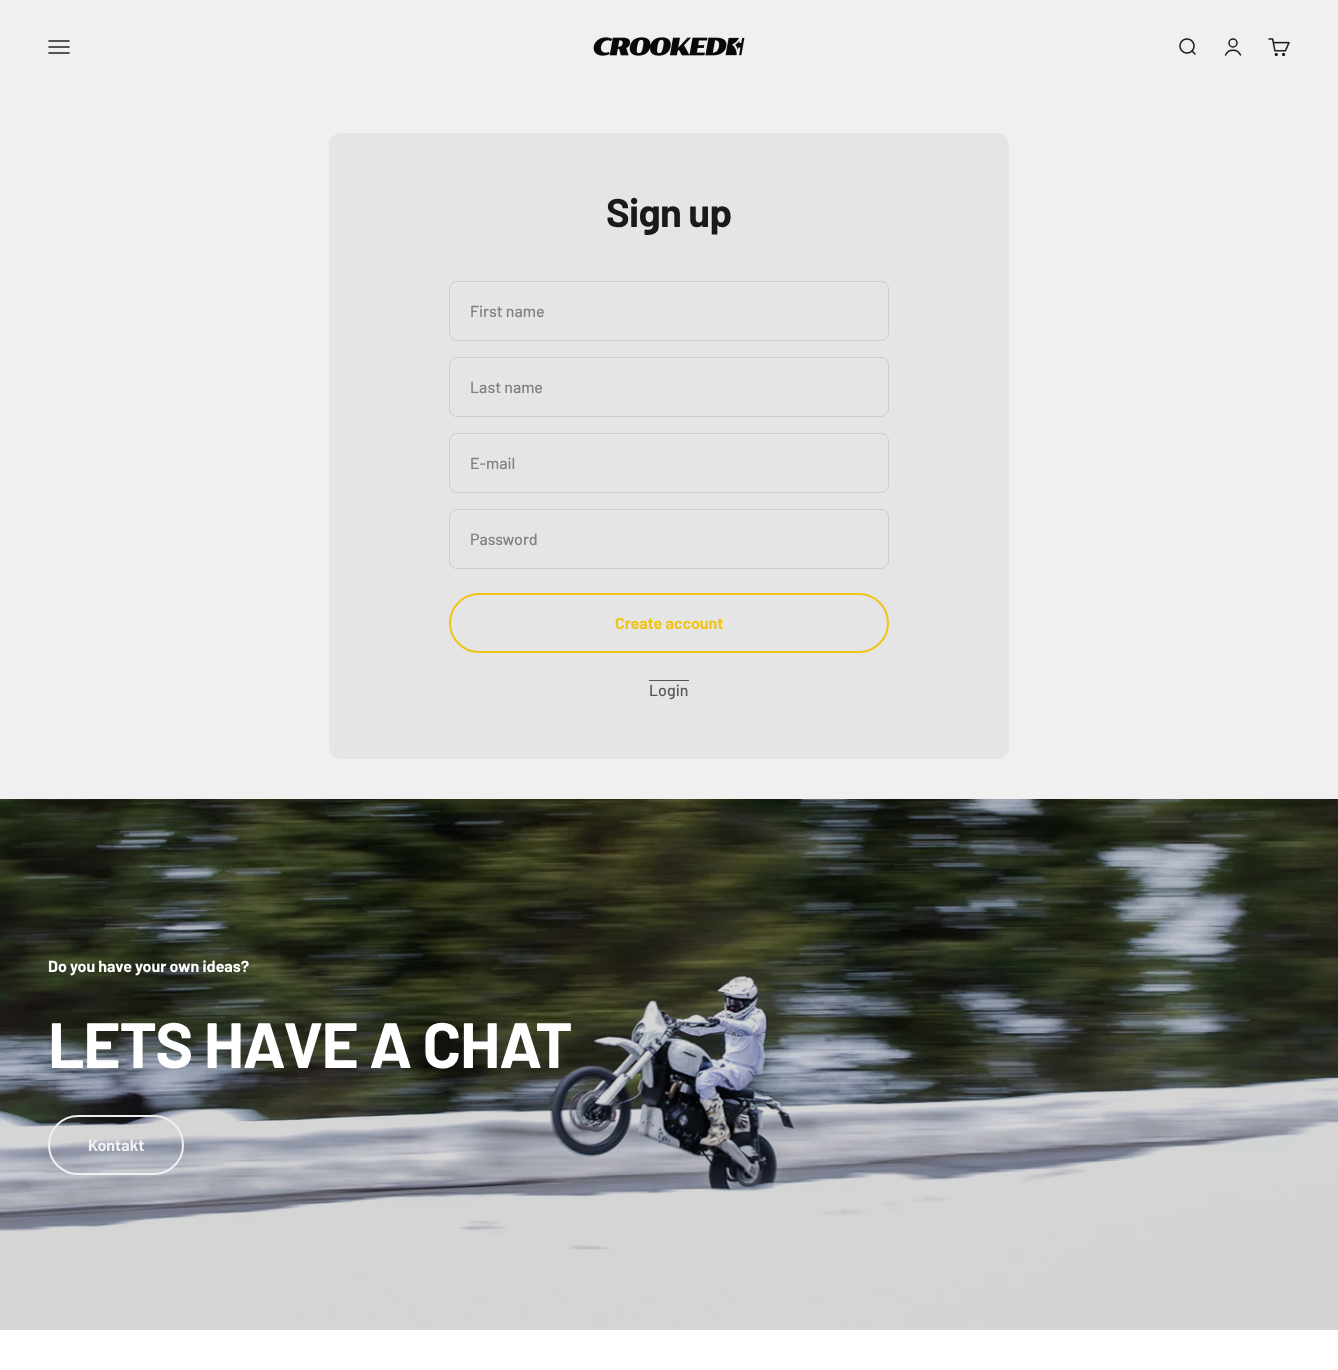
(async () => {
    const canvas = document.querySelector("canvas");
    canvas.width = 1338;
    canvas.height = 1370;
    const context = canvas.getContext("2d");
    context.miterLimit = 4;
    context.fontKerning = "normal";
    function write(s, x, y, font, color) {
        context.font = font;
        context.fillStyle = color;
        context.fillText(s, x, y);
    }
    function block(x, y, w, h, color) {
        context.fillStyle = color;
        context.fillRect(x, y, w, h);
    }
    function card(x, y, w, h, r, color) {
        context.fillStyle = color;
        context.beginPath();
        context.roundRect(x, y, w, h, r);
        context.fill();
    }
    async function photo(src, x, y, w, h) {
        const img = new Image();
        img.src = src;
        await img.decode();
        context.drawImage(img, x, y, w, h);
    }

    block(0, 0, 1338, 1370, "rgb(240, 240, 240)");
    await photo("media/1.png", 48, 40, 22, 14);
    await photo("media/2.png", 593, 37, 152, 19);
    await photo("media/3.png", 1179, 38, 17, 17);
    context.beginPath();
    context.arc(1233, 43, 4, 0, Math.PI * 2);
    context.strokeStyle = "rgb(26, 26, 26)";
    context.lineWidth = 1.5;
    context.stroke();
    context.beginPath();
    context.moveTo(1225.5, 55);
    context.bezierCurveTo(1228.5, 48.5, 1237.5, 48.5, 1240.5, 55);
    context.lineCap = "round";
    context.stroke();
    await photo("media/4.png", 1268, 38, 22, 19);
    card(329, 133, 680, 626, 12, "rgb(229, 229, 229)");
    context.letterSpacing = "-0.75px";
    write("Sign up", 606, 227, "bold 40px Barlow", "rgb(26, 26, 26)");
    context.beginPath();
    context.roundRect(449.5, 281.5, 439, 59, 7.5);
    context.strokeStyle = "rgb(205, 205, 205)";
    context.lineWidth = 1;
    context.stroke();
    context.letterSpacing = "0px";
    write("First name", 470, 317, "500 16px Barlow", "rgb(128, 128, 128)");
    context.beginPath();
    context.roundRect(449.5, 357.5, 439, 59, 7.5);
    context.stroke();
    write("Last name", 470, 393, "500 16px Barlow", "rgb(128, 128, 128)");
    context.beginPath();
    context.roundRect(449.5, 433.5, 439, 59, 7.5);
    context.stroke();
    write("E-mail", 470, 469, "500 16px Barlow", "rgb(128, 128, 128)");
    context.beginPath();
    context.roundRect(449.5, 509.5, 439, 59, 7.5);
    context.stroke();
    write("Password", 470, 545, "500 16px Barlow", "rgb(128, 128, 128)");
    context.beginPath();
    context.roundRect(450, 594, 438, 58, 29);
    context.strokeStyle = "rgb(240, 196, 23)";
    context.lineWidth = 2;
    context.stroke();
    write("Create account", 615, 629, "bold 16px Barlow", "rgb(240, 196, 23)");
    write("Login", 649, 696, "500 16px Barlow", "rgb(87, 87, 87)");
    block(649, 680, 40, 1, "rgb(87, 87, 87)");
    await photo("media/5.png", 0, 799, 1338, 531);
    write("Do you have your own ideas?", 48, 972, "bold 16px Barlow", "rgb(255, 255, 255)");
    context.letterSpacing = "-1.25px";
    write("LETS HAVE A CHAT", 48, 1068, "bold 64px Barlow", "rgb(255, 255, 255)");
    context.beginPath();
    context.roundRect(49, 1116, 134, 58, 29);
    context.strokeStyle = "rgb(240, 240, 240)";
    context.stroke();
    context.letterSpacing = "0px";
    write("Kontakt", 88, 1151, "bold 16px Barlow", "rgb(240, 240, 240)");
    block(0, 1330, 1338, 40, "rgb(255, 255, 255)");
})();
